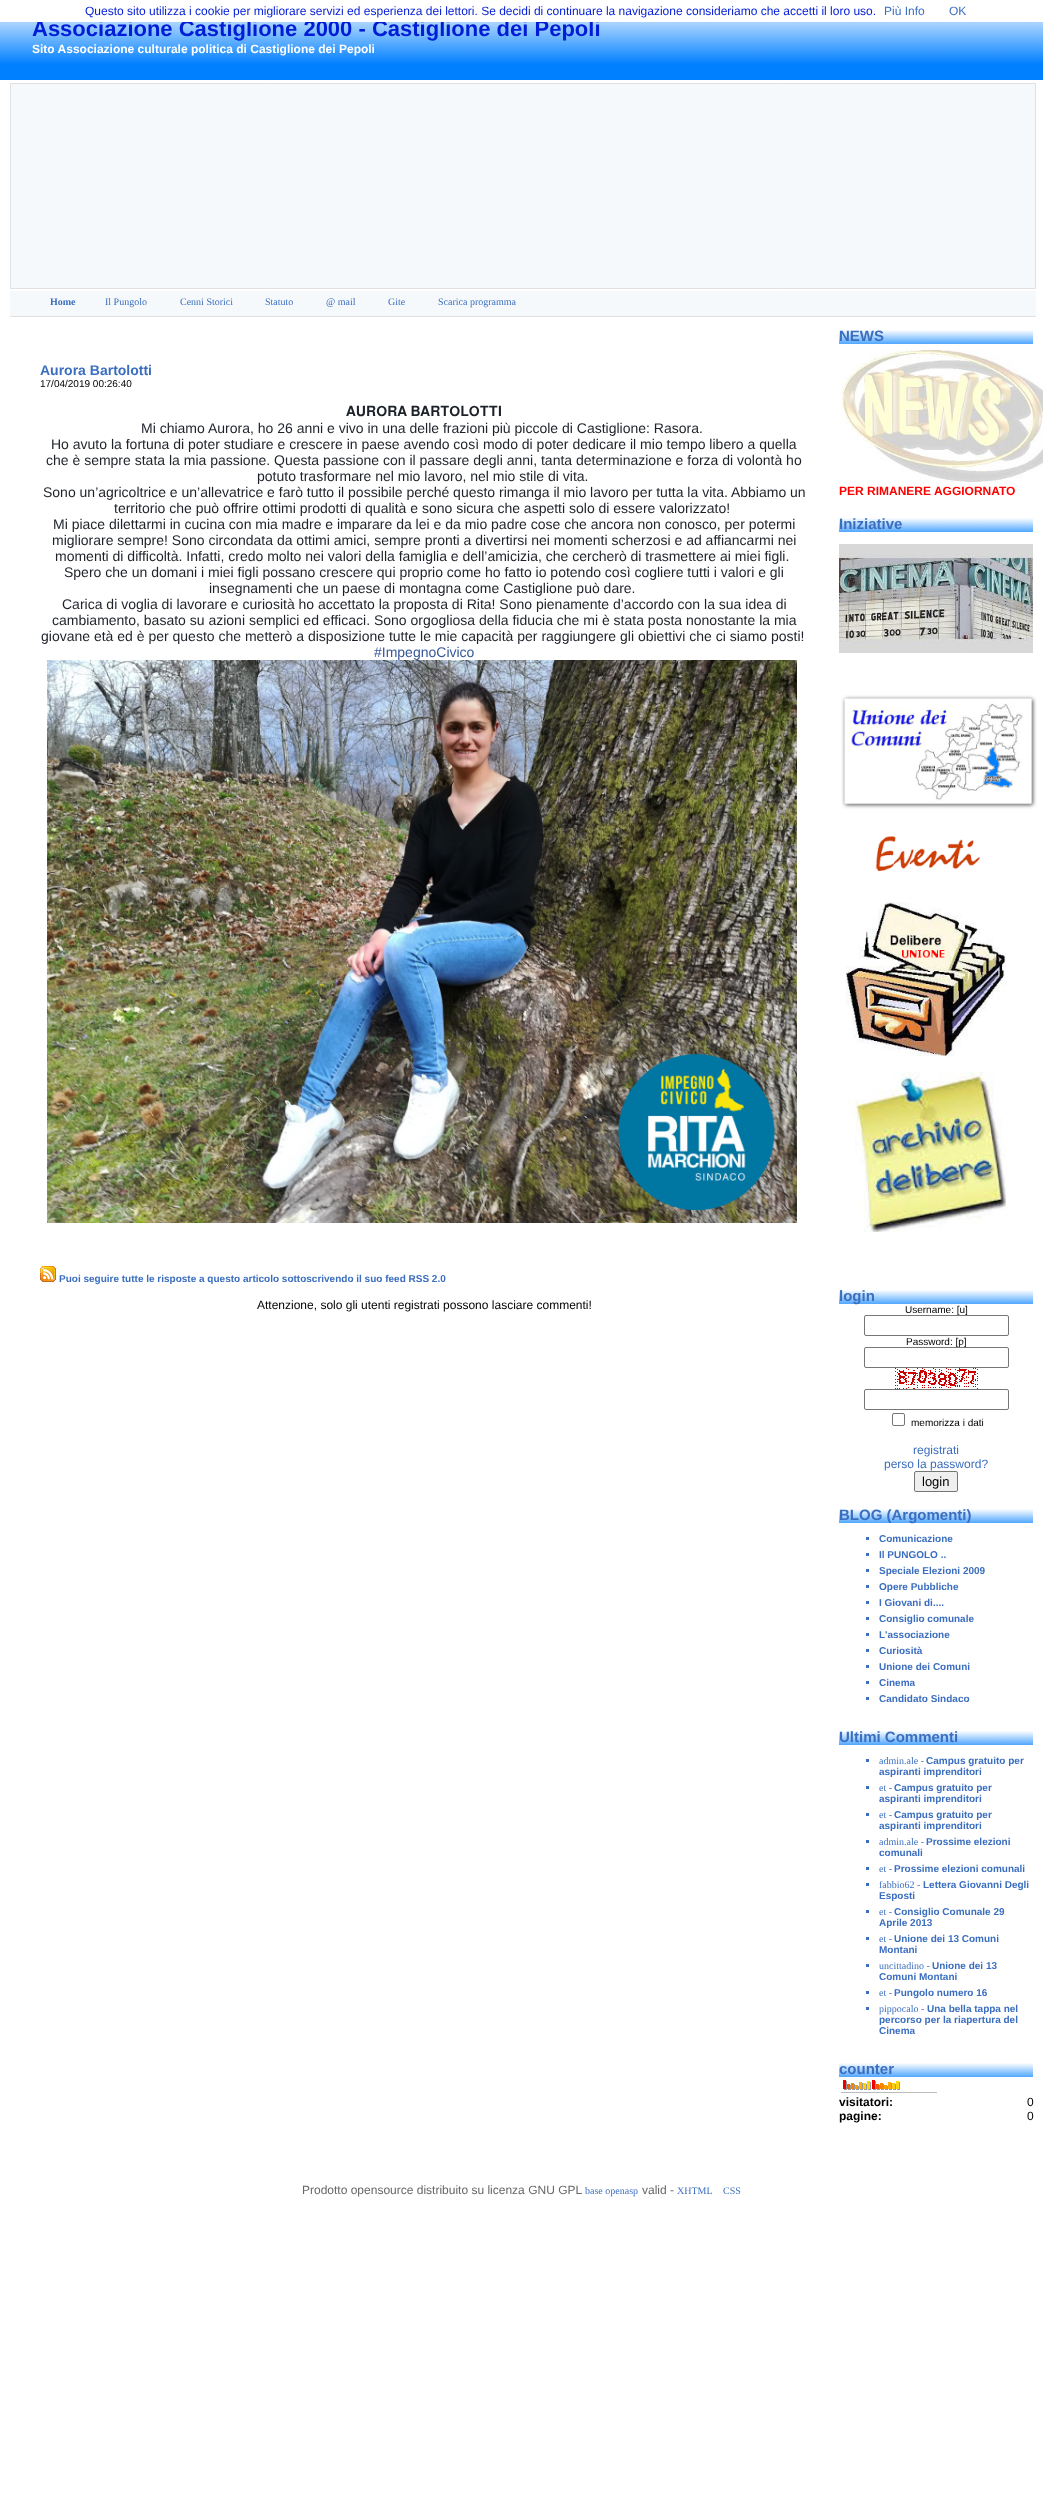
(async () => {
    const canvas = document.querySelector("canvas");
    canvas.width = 1043;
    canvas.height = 2509;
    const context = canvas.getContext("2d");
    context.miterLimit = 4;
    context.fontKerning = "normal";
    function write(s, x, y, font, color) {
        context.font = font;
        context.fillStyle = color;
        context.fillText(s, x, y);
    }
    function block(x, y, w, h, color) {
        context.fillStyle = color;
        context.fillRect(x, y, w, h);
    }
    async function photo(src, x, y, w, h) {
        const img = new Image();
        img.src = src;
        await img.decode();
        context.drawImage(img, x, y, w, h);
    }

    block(0, 0, 1043, 2509, "rgb(255, 255, 255)");
    await photo("media/1.png", 0, 22, 1043, 58);
    write("Associazione Castiglione 2000 - Castiglione dei Pepoli", 32, 36, "bold 22px Liberation Sans", "rgb(0, 28, 213)");
    block(37, 20, 562, 2, "rgb(255, 255, 255)");
    write("Questo sito utilizza i cookie per migliorare servizi ed esperienza dei lettori. Se decidi di continuare la navigazione consideriamo che accetti il loro uso.", 85, 15, "12px Liberation Sans", "rgb(0, 28, 213)");
    write("Più Info", 884, 15, "12px Liberation Sans", "rgb(59, 110, 191)");
    write("OK", 949, 15, "12px Liberation Sans", "rgb(59, 110, 191)");
    write("Sito Associazione culturale politica di Castiglione dei Pepoli", 32, 53, "bold 12px Liberation Sans", "rgb(255, 255, 255)");
    context.fillStyle = "rgb(246, 249, 251)";
    context.beginPath();
    context.rect(10.5, 83.5, 1025, 205);
    context.fill();
    context.strokeStyle = "rgb(225, 225, 225)";
    context.stroke();
    block(10, 291, 1026, 25, "rgb(246, 249, 251)");
    block(10, 316, 1026, 1, "rgb(225, 225, 225)");
    write("Home", 50, 305, "bold 10px Liberation Serif", "rgb(59, 110, 191)");
    write("Il Pungolo", 105, 305, "10px Liberation Serif", "rgb(59, 110, 191)");
    write("Cenni Storici", 180, 305, "10px Liberation Serif", "rgb(59, 110, 191)");
    write("Statuto", 265, 305, "10px Liberation Serif", "rgb(59, 110, 191)");
    write("@ mail", 326, 305, "10px Liberation Serif", "rgb(59, 110, 191)");
    write("Gite", 388, 305, "10px Liberation Serif", "rgb(59, 110, 191)");
    write("Scarica programma", 438, 305, "10px Liberation Serif", "rgb(59, 110, 191)");
    write("Aurora Bartolotti", 40, 375, "bold 14px Liberation Sans", "rgb(59, 110, 191)");
    write("17/04/2019 00:26:40", 40, 387, "10px Liberation Sans", "rgb(0, 0, 0)");
    write("𝐀𝐔𝐑𝐎𝐑𝐀 𝐁𝐀𝐑𝐓𝐎𝐋𝐎𝐓𝐓𝐈", 346, 416, "14px FreeSans", "rgb(29, 33, 41)");
    write("Mi chiamo Aurora, ho 26 anni e vivo in una delle frazioni più piccole di Castiglione: Rasora.", 141, 433, "14px Liberation Sans", "rgb(29, 33, 41)");
    write("Ho avuto la fortuna di poter studiare e crescere in paese avendo così modo di poter dedicare il mio tempo libero a quella", 51, 449, "14px Liberation Sans", "rgb(29, 33, 41)");
    write("che è sempre stata la mia passione. Questa passione con il passare degli anni, tanta determinazione e forza di volontà ho", 46, 465, "14px Liberation Sans", "rgb(29, 33, 41)");
    write("potuto trasformare nel mio lavoro, nel mio stile di vita.", 257, 481, "14px Liberation Sans", "rgb(29, 33, 41)");
    write("Sono un’agricoltrice e un’allevatrice e farò tutto il possibile perché questo rimanga il mio lavoro per tutta la vita. Abbiamo un", 43, 497, "14px Liberation Sans", "rgb(29, 33, 41)");
    write("territorio che può offrire ottimi prodotti di qualità e sono sicura che aspetti solo di essere valorizzato!", 114, 513, "14px Liberation Sans", "rgb(29, 33, 41)");
    write("Mi piace dilettarmi in cucina con mia madre e imparare da lei e da mio padre cose che ancora non conosco, per potermi", 53, 529, "14px Liberation Sans", "rgb(29, 33, 41)");
    write("migliorare sempre! Sono circondata da ottimi amici, sempre pronti a divertirsi nei momenti scherzosi e ad affiancarmi nei", 52, 545, "14px Liberation Sans", "rgb(29, 33, 41)");
    write("momenti di difficoltà. Infatti, credo molto nei valori della famiglia e dell’amicizia, che cercherò di trasmettere ai miei figli.", 55, 561, "14px Liberation Sans", "rgb(29, 33, 41)");
    write("Spero che un domani i miei figli possano crescere qui proprio come ho fatto io potendo così cogliere tutti i valori e gli", 64, 577, "14px Liberation Sans", "rgb(29, 33, 41)");
    write("insegnamenti che un paese di montagna come Castiglione può dare.", 209, 593, "14px Liberation Sans", "rgb(29, 33, 41)");
    write("Carica di voglia di lavorare e curiosità ho accettato la proposta di Rita! Sono pienamente d’accordo con la sua idea di", 62, 609, "14px Liberation Sans", "rgb(29, 33, 41)");
    write("cambiamento, basato su azioni semplici ed efficaci. Sono orgogliosa della fiducia che mi è stata posta nonostante la mia", 52, 625, "14px Liberation Sans", "rgb(29, 33, 41)");
    write("giovane età ed è per questo che metterò a disposizione tutte le mie capacità per raggiungere gli obiettivi che ci siamo posti!", 41, 641, "14px Liberation Sans", "rgb(29, 33, 41)");
    write("#ImpegnoCivico", 374, 657, "14px Liberation Sans", "rgb(54, 88, 153)");
    await photo("media/2.png", 47, 660, 750, 563);
    await photo("media/3.png", 40, 1266, 16, 16);
    write("Puoi seguire tutte le risposte a questo articolo sottoscrivendo il suo feed RSS 2.0", 59, 1282, "bold 10px Liberation Sans", "rgb(59, 110, 191)");
    write("Attenzione, solo gli utenti registrati possono lasciare commenti!", 257, 1309, "12px Liberation Sans", "rgb(0, 0, 0)");
    await photo("media/4.png", 839, 330, 194, 14);
    write("NEWS", 839, 341, "bold 15px Liberation Sans", "rgb(59, 110, 191)");
    await photo("media/5.png", 839, 350, 204, 132);
    write("PER RIMANERE AGGIORNATO", 839, 495, "bold 12px Liberation Sans", "rgb(255, 0, 0)");
    await photo("media/4.png", 839, 518, 194, 14);
    write("Iniziative", 839, 529, "bold 15px Liberation Sans", "rgb(59, 110, 191)");
    await photo("media/6.png", 839, 544, 194, 109);
    await photo("media/7.png", 841, 695, 196, 114);
    await photo("media/8.png", 875, 836, 106, 35);
    await photo("media/9.png", 846, 902, 160, 155);
    await photo("media/10.png", 846, 1072, 160, 160);
    await photo("media/4.png", 839, 1290, 194, 14);
    write("login", 839, 1301, "bold 15px Liberation Sans", "rgb(59, 110, 191)");
    write("Username: [u]", 905, 1313, "10px Liberation Sans", "rgb(0, 0, 0)");
    context.fillStyle = "rgb(255, 255, 255)";
    context.beginPath();
    context.roundRect(864.5, 1315.5, 144, 20, 1.5);
    context.fill();
    context.strokeStyle = "rgb(118, 118, 118)";
    context.stroke();
    write("Password: [p]", 906, 1345, "10px Liberation Sans", "rgb(0, 0, 0)");
    context.fillStyle = "rgb(255, 255, 255)";
    context.beginPath();
    context.roundRect(864.5, 1347.5, 144, 20, 1.5);
    context.fill();
    context.stroke();
    await photo("media/11.png", 895, 1368, 83, 21);
    context.beginPath();
    context.roundRect(864.5, 1389.5, 144, 20, 1.5);
    context.stroke();
    context.beginPath();
    context.roundRect(892.5, 1413.5, 12, 12, 1.5);
    context.stroke();
    write("memorizza i dati", 911, 1426, "10px Liberation Sans", "rgb(0, 0, 0)");
    write("registrati", 913, 1454, "12px Liberation Sans", "rgb(59, 110, 191)");
    write("perso la password?", 884, 1468, "12px Liberation Sans", "rgb(59, 110, 191)");
    context.fillStyle = "rgb(239, 239, 239)";
    context.beginPath();
    context.roundRect(914.5, 1471.5, 43, 20, 1.5);
    context.fill();
    context.stroke();
    write("login", 922, 1486, "13px Liberation Sans", "rgb(0, 0, 0)");
    await photo("media/4.png", 839, 1509, 194, 14);
    write("BLOG (Argomenti)", 839, 1520, "bold 15px Liberation Sans", "rgb(59, 110, 191)");
    block(866, 1537, 3, 3, "rgb(59, 110, 191)");
    write("Comunicazione", 879, 1542, "bold 10px Liberation Sans", "rgb(59, 110, 191)");
    block(866, 1553, 3, 3, "rgb(59, 110, 191)");
    write("Il PUNGOLO ..", 879, 1558, "bold 10px Liberation Sans", "rgb(59, 110, 191)");
    block(866, 1569, 3, 3, "rgb(59, 110, 191)");
    write("Speciale Elezioni 2009", 879, 1574, "bold 10px Liberation Sans", "rgb(59, 110, 191)");
    block(866, 1585, 3, 3, "rgb(59, 110, 191)");
    write("Opere Pubbliche", 879, 1590, "bold 10px Liberation Sans", "rgb(59, 110, 191)");
    block(866, 1601, 3, 3, "rgb(59, 110, 191)");
    write("I Giovani di....", 879, 1606, "bold 10px Liberation Sans", "rgb(59, 110, 191)");
    block(866, 1617, 3, 3, "rgb(59, 110, 191)");
    write("Consiglio comunale", 879, 1622, "bold 10px Liberation Sans", "rgb(59, 110, 191)");
    block(866, 1633, 3, 3, "rgb(59, 110, 191)");
    write("L'associazione", 879, 1638, "bold 10px Liberation Sans", "rgb(59, 110, 191)");
    block(866, 1649, 3, 3, "rgb(59, 110, 191)");
    write("Curiosità", 879, 1654, "bold 10px Liberation Sans", "rgb(59, 110, 191)");
    block(866, 1665, 3, 3, "rgb(59, 110, 191)");
    write("Unione dei Comuni", 879, 1670, "bold 10px Liberation Sans", "rgb(59, 110, 191)");
    block(866, 1681, 3, 3, "rgb(59, 110, 191)");
    write("Cinema", 879, 1686, "bold 10px Liberation Sans", "rgb(59, 110, 191)");
    block(866, 1697, 3, 3, "rgb(59, 110, 191)");
    write("Candidato Sindaco", 879, 1702, "bold 10px Liberation Sans", "rgb(59, 110, 191)");
    await photo("media/4.png", 839, 1731, 194, 14);
    write("Ultimi Commenti", 839, 1742, "bold 15px Liberation Sans", "rgb(59, 110, 191)");
    block(866, 1759, 3, 3, "rgb(59, 110, 191)");
    write("admin.ale -", 879, 1764, "10px Liberation Serif", "rgb(59, 110, 191)");
    write("Campus gratuito per", 926, 1764, "bold 10px Liberation Sans", "rgb(59, 110, 191)");
    write("aspiranti imprenditori", 879, 1775, "bold 10px Liberation Sans", "rgb(59, 110, 191)");
    block(866, 1786, 3, 3, "rgb(59, 110, 191)");
    write("et -", 879, 1791, "10px Liberation Serif", "rgb(59, 110, 191)");
    write("Campus gratuito per", 894, 1791, "bold 10px Liberation Sans", "rgb(59, 110, 191)");
    write("aspiranti imprenditori", 879, 1802, "bold 10px Liberation Sans", "rgb(59, 110, 191)");
    block(866, 1813, 3, 3, "rgb(59, 110, 191)");
    write("et -", 879, 1818, "10px Liberation Serif", "rgb(59, 110, 191)");
    write("Campus gratuito per", 894, 1818, "bold 10px Liberation Sans", "rgb(59, 110, 191)");
    write("aspiranti imprenditori", 879, 1829, "bold 10px Liberation Sans", "rgb(59, 110, 191)");
    block(866, 1840, 3, 3, "rgb(59, 110, 191)");
    write("admin.ale -", 879, 1845, "10px Liberation Serif", "rgb(59, 110, 191)");
    write("Prossime elezioni", 926, 1845, "bold 10px Liberation Sans", "rgb(59, 110, 191)");
    write("comunali", 879, 1856, "bold 10px Liberation Sans", "rgb(59, 110, 191)");
    block(866, 1867, 3, 3, "rgb(59, 110, 191)");
    write("et -", 879, 1872, "10px Liberation Serif", "rgb(59, 110, 191)");
    write("Prossime elezioni comunali", 894, 1872, "bold 10px Liberation Sans", "rgb(59, 110, 191)");
    block(866, 1883, 3, 3, "rgb(59, 110, 191)");
    write("fabbio62 -", 879, 1888, "10px Liberation Serif", "rgb(59, 110, 191)");
    write("Lettera Giovanni Degli", 923, 1888, "bold 10px Liberation Sans", "rgb(59, 110, 191)");
    write("Esposti", 879, 1899, "bold 10px Liberation Sans", "rgb(59, 110, 191)");
    block(866, 1910, 3, 3, "rgb(59, 110, 191)");
    write("et -", 879, 1915, "10px Liberation Serif", "rgb(59, 110, 191)");
    write("Consiglio Comunale 29", 894, 1915, "bold 10px Liberation Sans", "rgb(59, 110, 191)");
    write("Aprile 2013", 879, 1926, "bold 10px Liberation Sans", "rgb(59, 110, 191)");
    block(866, 1937, 3, 3, "rgb(59, 110, 191)");
    write("et -", 879, 1942, "10px Liberation Serif", "rgb(59, 110, 191)");
    write("Unione dei 13 Comuni", 894, 1942, "bold 10px Liberation Sans", "rgb(59, 110, 191)");
    write("Montani", 879, 1953, "bold 10px Liberation Sans", "rgb(59, 110, 191)");
    block(866, 1964, 3, 3, "rgb(59, 110, 191)");
    write("uncittadino -", 879, 1969, "10px Liberation Serif", "rgb(59, 110, 191)");
    write("Unione dei 13", 932, 1969, "bold 10px Liberation Sans", "rgb(59, 110, 191)");
    write("Comuni Montani", 879, 1980, "bold 10px Liberation Sans", "rgb(59, 110, 191)");
    block(866, 1991, 3, 3, "rgb(59, 110, 191)");
    write("et -", 879, 1996, "10px Liberation Serif", "rgb(59, 110, 191)");
    write("Pungolo numero 16", 894, 1996, "bold 10px Liberation Sans", "rgb(59, 110, 191)");
    block(866, 2007, 3, 3, "rgb(59, 110, 191)");
    write("pippocalo -", 879, 2012, "10px Liberation Serif", "rgb(59, 110, 191)");
    write("Una bella tappa nel", 927, 2012, "bold 10px Liberation Sans", "rgb(59, 110, 191)");
    write("percorso per la riapertura del", 879, 2023, "bold 10px Liberation Sans", "rgb(59, 110, 191)");
    write("Cinema", 879, 2034, "bold 10px Liberation Sans", "rgb(59, 110, 191)");
    await photo("media/4.png", 839, 2063, 194, 14);
    write("counter", 839, 2074, "bold 15px Liberation Sans", "rgb(59, 110, 191)");
    await photo("media/12.png", 841, 2080, 96, 13);
    write("visitatori:", 839, 2106, "bold 12px Liberation Sans", "rgb(0, 0, 0)");
    write("0", 1027, 2106, "12px Liberation Sans", "rgb(0, 0, 0)");
    write("pagine:", 839, 2120, "bold 12px Liberation Sans", "rgb(0, 0, 0)");
    write("0", 1027, 2120, "12px Liberation Sans", "rgb(0, 0, 0)");
    write("Prodotto opensource distribuito su licenza GNU GPL", 302, 2194, "12px Liberation Sans", "rgb(102, 102, 102)");
    write("base openasp", 585, 2194, "10px Liberation Serif", "rgb(59, 110, 191)");
    write("valid -", 642, 2194, "12px Liberation Sans", "rgb(102, 102, 102)");
    write("XHTML", 677, 2194, "10px Liberation Serif", "rgb(59, 110, 191)");
    write("CSS", 723, 2194, "10px Liberation Serif", "rgb(59, 110, 191)");
})();
